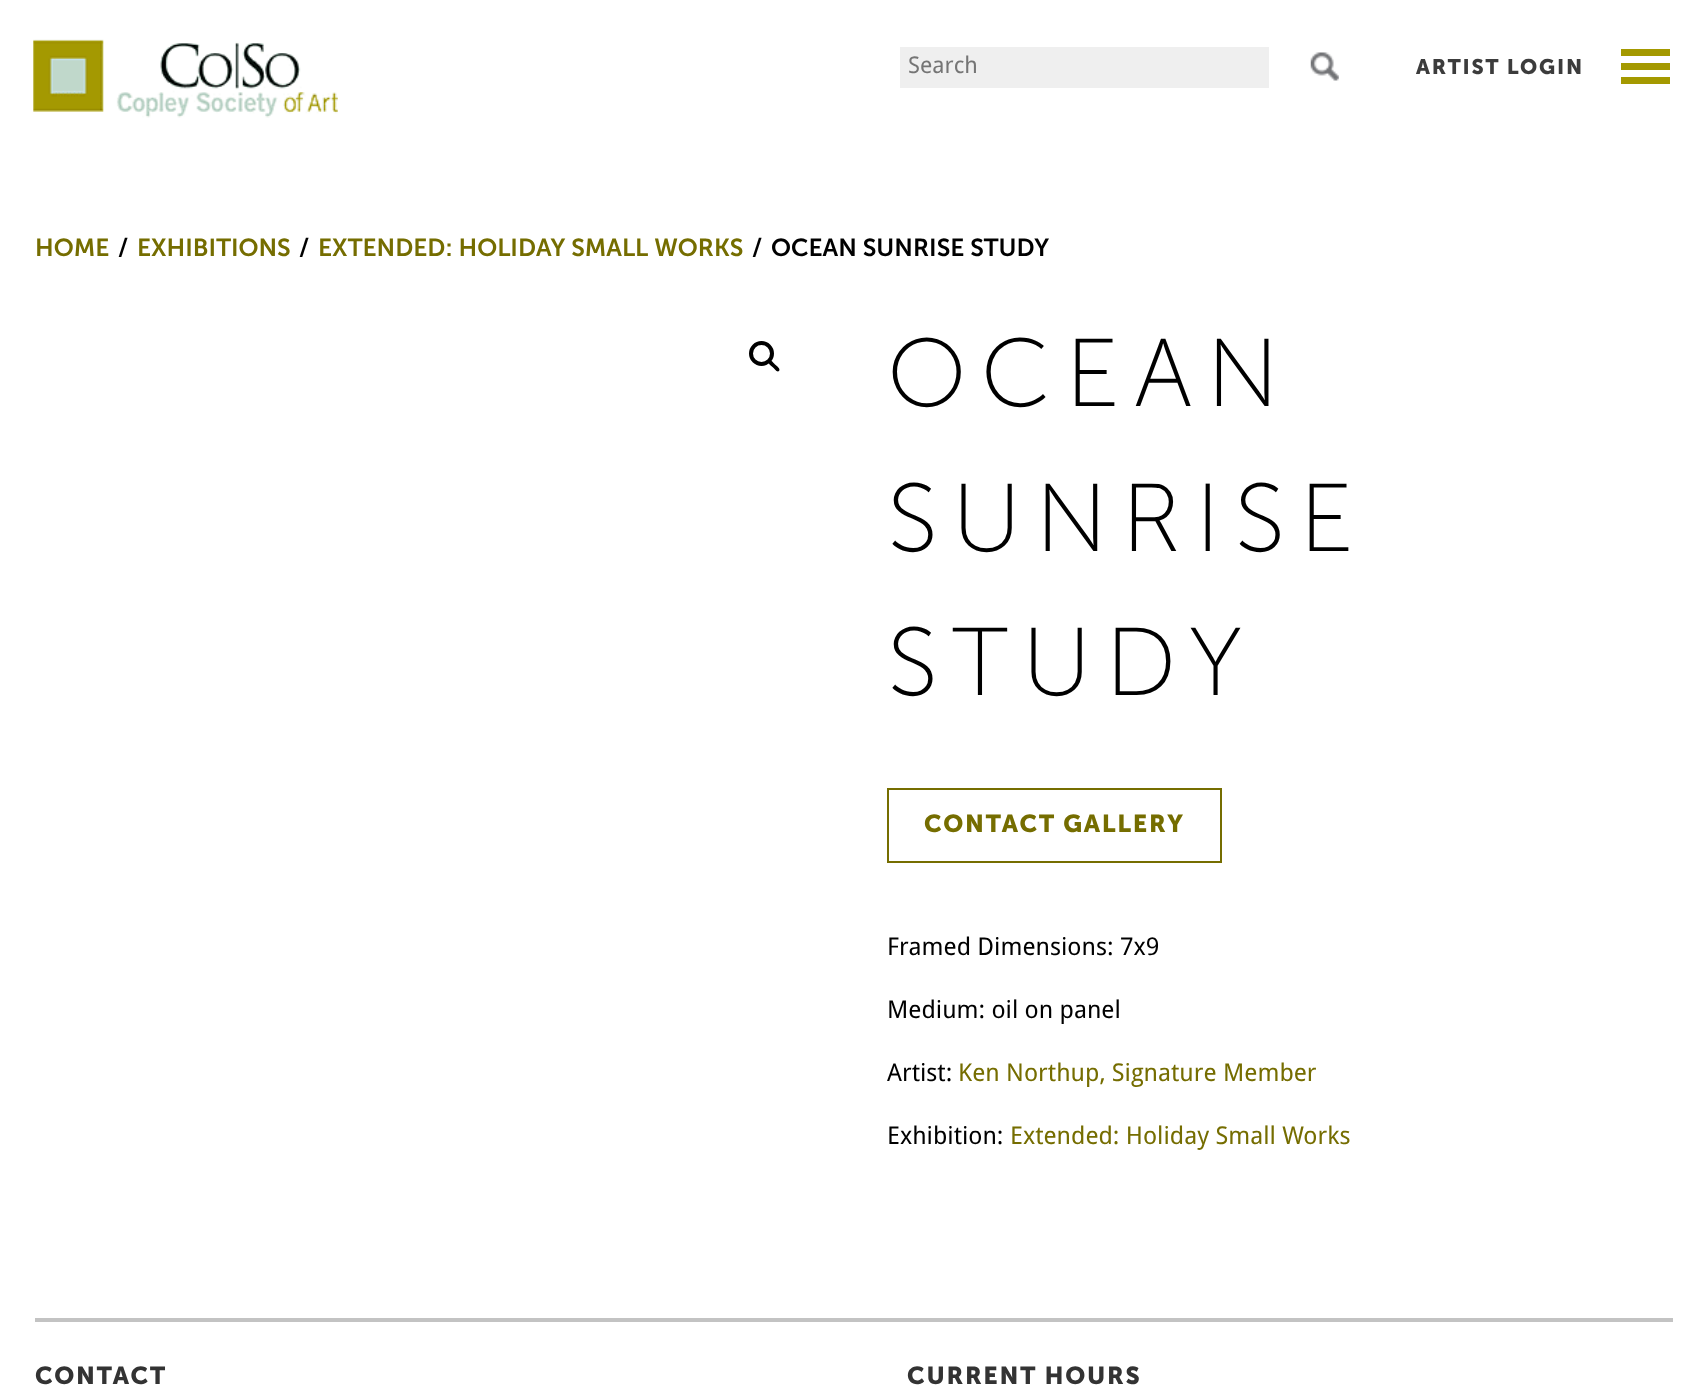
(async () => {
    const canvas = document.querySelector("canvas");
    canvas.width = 1708;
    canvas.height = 1398;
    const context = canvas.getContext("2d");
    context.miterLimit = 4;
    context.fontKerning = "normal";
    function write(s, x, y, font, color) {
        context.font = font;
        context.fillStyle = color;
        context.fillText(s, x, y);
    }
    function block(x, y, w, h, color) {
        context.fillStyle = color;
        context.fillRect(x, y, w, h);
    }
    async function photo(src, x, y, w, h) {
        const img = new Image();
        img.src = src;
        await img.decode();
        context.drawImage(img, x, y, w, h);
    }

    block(0, 0, 1708, 1398, "rgb(255, 255, 255)");
    await photo("media/1.png", 33, 39, 305, 79);
    block(900, 47, 369, 41, "rgb(239, 239, 239)");
    write("Search", 908, 73, "23px Droid Sans", "rgb(117, 117, 117)");
    await photo("media/2.png", 1310, 52, 29, 29);
    context.letterSpacing = "1.75px";
    write("ARTIST LOGIN", 1416, 74, "bold 21px Museo Sans", "rgb(60, 60, 60)");
    block(1621, 49, 49, 7, "rgb(164, 153, 0)");
    block(1621, 63, 49, 7, "rgb(164, 153, 0)");
    block(1621, 77, 49, 7, "rgb(164, 153, 0)");
    context.letterSpacing = "0px";
    write("HOME", 35, 256, "600 24.5px Museo Sans", "rgb(117, 109, 0)");
    write("/", 118, 256, "600 24.5px Museo Sans", "rgb(0, 0, 0)");
    write("EXHIBITIONS", 137, 256, "600 24.5px Museo Sans", "rgb(117, 109, 0)");
    write("/", 299, 256, "600 24.5px Museo Sans", "rgb(0, 0, 0)");
    write("EXTENDED: HOLIDAY SMALL WORKS", 318, 256, "600 24.5px Museo Sans", "rgb(117, 109, 0)");
    write("/", 752, 256, "600 24.5px Museo Sans", "rgb(0, 0, 0)");
    write("OCEAN SUNRISE STUDY", 771, 256, "600 24.5px Museo Sans", "rgb(0, 0, 0)");
    context.beginPath();
    context.arc(761.5, 353.5, 10.5, 0, Math.PI * 2);
    context.strokeStyle = "rgb(0, 0, 0)";
    context.lineWidth = 4;
    context.stroke();
    context.beginPath();
    context.moveTo(769, 361);
    context.bezierCurveTo(771, 359, 774, 363.5, 775, 364.5);
    context.bezierCurveTo(776.5, 365.5, 781, 369, 779, 371);
    context.bezierCurveTo(777, 373, 774, 368, 772.5, 367);
    context.bezierCurveTo(771.5, 366, 767, 363, 769, 361);
    context.closePath();
    context.fill();
    context.letterSpacing = "14px";
    write("OCEAN", 887, 406, "200 96.25px Museo Sans", "rgb(0, 0, 0)");
    write("SUNRISE", 887, 551, "200 96.25px Museo Sans", "rgb(0, 0, 0)");
    write("STUDY", 887, 695, "200 96.25px Museo Sans", "rgb(0, 0, 0)");
    context.strokeStyle = "rgb(117, 109, 0)";
    context.lineWidth = 2;
    context.strokeRect(888, 789, 333, 73);
    context.letterSpacing = "1.75px";
    write("CONTACT GALLERY", 924, 832, "bold 24.5px Museo Sans", "rgb(117, 109, 0)");
    context.letterSpacing = "0px";
    write("Framed Dimensions: 7x9", 887, 955, "24.5px Droid Sans", "rgb(0, 0, 0)");
    write("Medium: oil on panel", 887, 1018, "24.5px Droid Sans", "rgb(0, 0, 0)");
    write("Artist:", 887, 1081, "24.5px Droid Sans", "rgb(0, 0, 0)");
    write("Ken Northup, Signature Member", 958, 1081, "24.5px Droid Sans", "rgb(117, 109, 0)");
    write("Exhibition:", 887, 1144, "24.5px Droid Sans", "rgb(0, 0, 0)");
    write("Extended: Holiday Small Works", 1010, 1144, "24.5px Droid Sans", "rgb(117, 109, 0)");
    block(35, 1318, 1638, 4, "rgb(195, 195, 195)");
    context.letterSpacing = "1.75px";
    write("CONTACT", 35, 1384, "bold 24.5px Museo Sans", "rgb(51, 51, 51)");
    write("CURRENT HOURS", 907, 1384, "bold 24.5px Museo Sans", "rgb(51, 51, 51)");
})();
